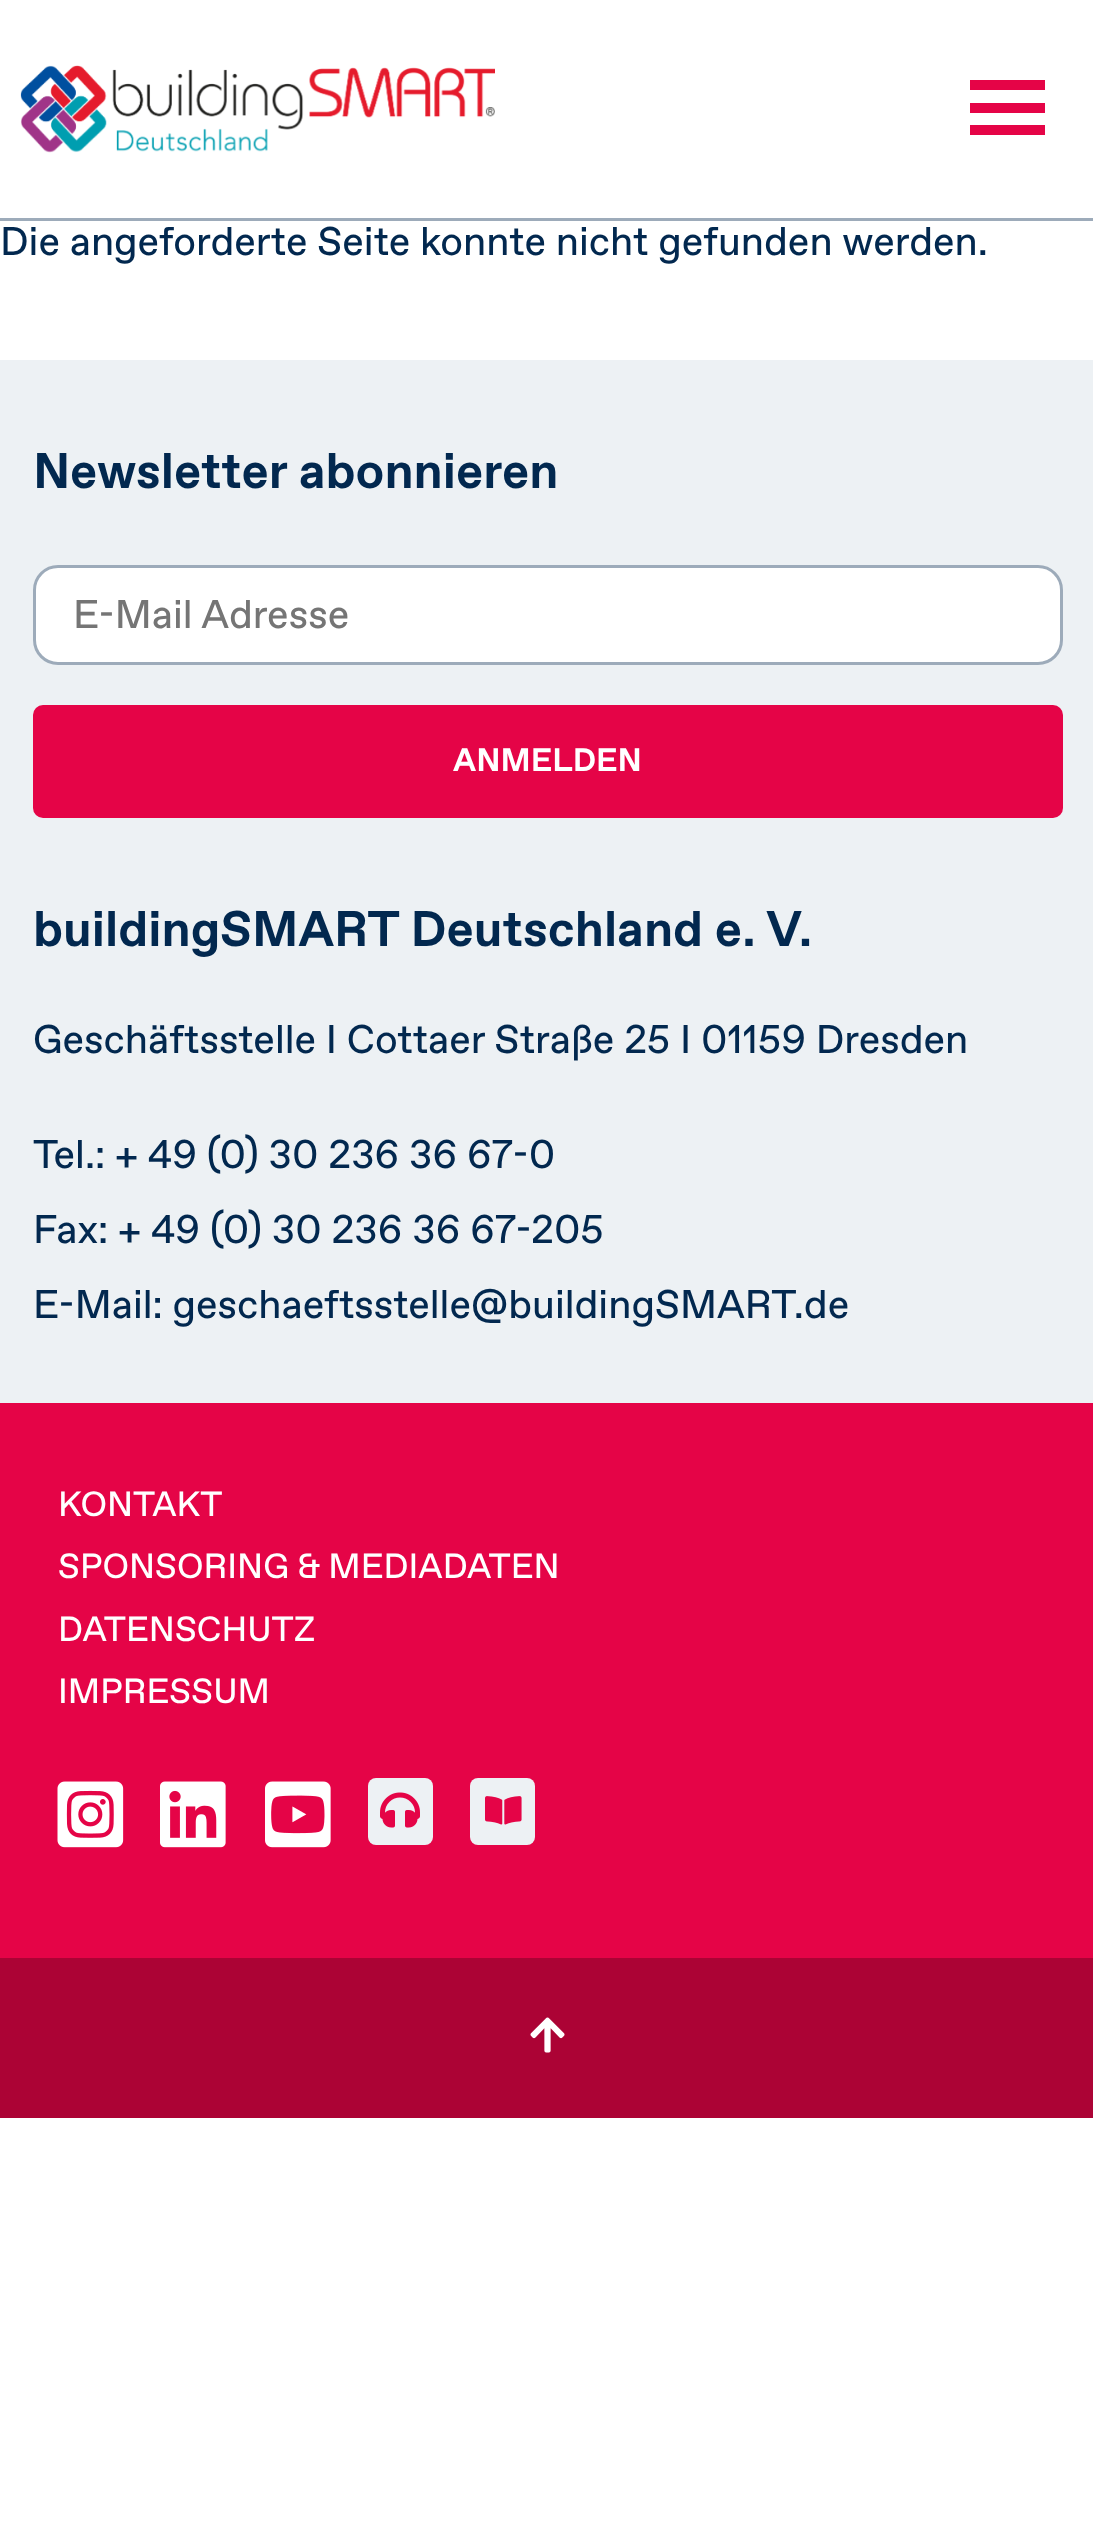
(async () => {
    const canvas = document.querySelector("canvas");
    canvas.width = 1093;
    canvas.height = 2543;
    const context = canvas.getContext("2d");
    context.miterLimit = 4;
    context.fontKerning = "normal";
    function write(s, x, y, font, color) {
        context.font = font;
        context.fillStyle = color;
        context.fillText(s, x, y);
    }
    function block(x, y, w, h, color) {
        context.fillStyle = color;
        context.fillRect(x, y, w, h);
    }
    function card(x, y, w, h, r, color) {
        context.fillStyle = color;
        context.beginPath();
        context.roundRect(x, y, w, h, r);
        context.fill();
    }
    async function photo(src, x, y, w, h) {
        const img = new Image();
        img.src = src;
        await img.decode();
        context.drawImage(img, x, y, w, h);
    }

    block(0, 0, 1093, 2543, "rgb(255, 255, 255)");
    block(0, 218, 1093, 3, "rgb(157, 171, 186)");
    await photo("media/1.png", 20, 65, 475, 88);
    block(970, 80, 75, 10, "rgb(229, 4, 71)");
    block(970, 103, 75, 10, "rgb(229, 4, 71)");
    block(970, 125, 75, 10, "rgb(229, 4, 71)");
    write("Die angeforderte Seite konnte nicht gefunden werden.", 0, 255, "40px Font", "rgb(2, 40, 79)");
    block(0, 360, 1093, 1043, "rgb(237, 241, 244)");
    write("Newsletter abonnieren", 33, 488, "bold 50px Font", "rgb(2, 40, 79)");
    context.fillStyle = "rgb(255, 255, 255)";
    context.beginPath();
    context.roundRect(34.5, 566.5, 1027, 97, 23.5);
    context.fill();
    context.strokeStyle = "rgb(157, 171, 186)";
    context.lineWidth = 3;
    context.stroke();
    write("E-Mail Adresse", 73, 628, "40px Font", "rgb(117, 117, 117)");
    card(33, 705, 1030, 113, 10, "rgb(229, 4, 71)");
    write("ANMELDEN", 453, 771, "bold 32.5px Font", "rgb(255, 255, 255)");
    write("buildingSMART Deutschland e. V.", 33, 946, "bold 50px Font", "rgb(2, 40, 79)");
    write("Geschäftsstelle I Cottaer Straße 25 I 01159 Dresden", 33, 1053, "40px Font", "rgb(2, 40, 79)");
    write("Tel.: + 49 (0) 30 236 36 67-0", 33, 1168, "40px Font", "rgb(2, 40, 79)");
    write("Fax: + 49 (0) 30 236 36 67-205", 33, 1243, "40px Font", "rgb(2, 40, 79)");
    write("E-Mail: geschaeftsstelle@buildingSMART.de", 33, 1318, "40px Font", "rgb(2, 40, 79)");
    block(0, 1403, 1093, 555, "rgb(229, 4, 71)");
    write("KONTAKT", 58, 1516, "35px Font", "rgb(255, 255, 255)");
    write("SPONSORING & MEDIADATEN", 58, 1578, "35px Font", "rgb(255, 255, 255)");
    write("DATENSCHUTZ", 58, 1641, "35px Font", "rgb(255, 255, 255)");
    write("IMPRESSUM", 58, 1703, "35px Font", "rgb(255, 255, 255)");
    await photo("media/2.png", 57, 1781, 67, 67);
    await photo("media/3.png", 160, 1781, 66, 67);
    await photo("media/4.png", 265, 1781, 66, 67);
    card(368, 1778, 65, 67, 8, "rgb(237, 241, 244)");
    await photo("media/5.png", 380, 1792, 40, 36);
    card(470, 1778, 65, 67, 8, "rgb(237, 241, 244)");
    await photo("media/6.png", 485, 1796, 37, 29);
    block(0, 1958, 1093, 160, "rgb(172, 3, 53)");
    await photo("media/7.png", 530, 2017, 35, 36);
})();
